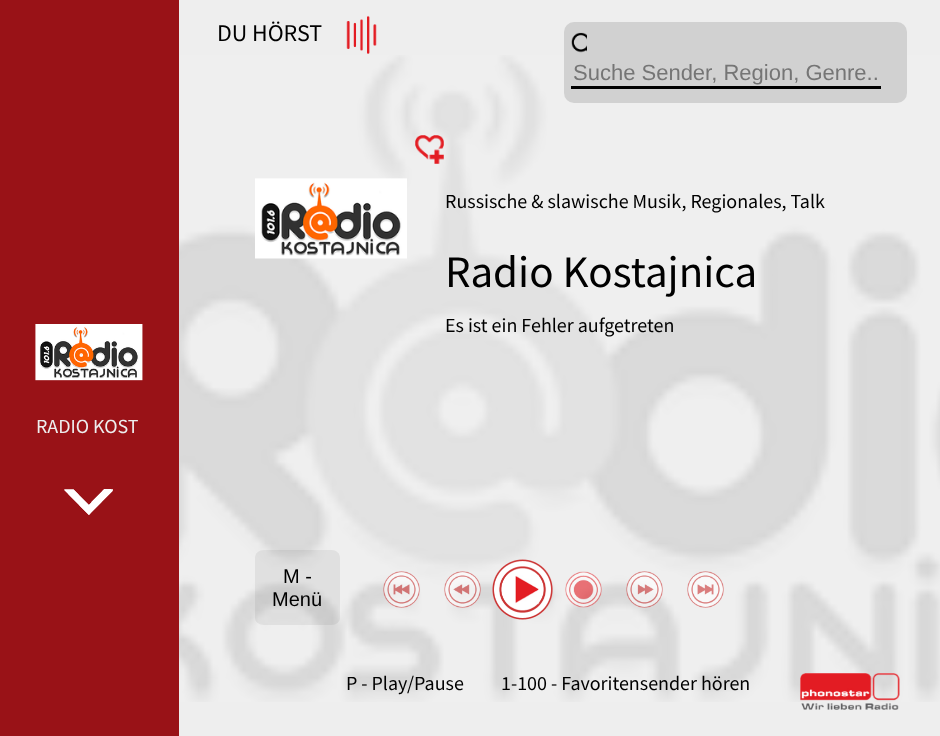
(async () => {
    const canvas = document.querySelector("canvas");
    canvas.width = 940;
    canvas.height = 736;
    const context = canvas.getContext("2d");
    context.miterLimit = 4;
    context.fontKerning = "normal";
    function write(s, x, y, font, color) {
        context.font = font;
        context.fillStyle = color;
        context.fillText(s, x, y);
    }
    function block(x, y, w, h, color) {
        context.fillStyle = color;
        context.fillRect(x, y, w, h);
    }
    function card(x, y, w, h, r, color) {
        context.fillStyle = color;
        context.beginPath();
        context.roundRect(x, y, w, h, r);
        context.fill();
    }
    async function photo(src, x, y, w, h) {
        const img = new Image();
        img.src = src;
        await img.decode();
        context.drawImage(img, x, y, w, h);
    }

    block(0, 0, 940, 736, "rgb(238, 238, 238)");
    write("DU HÖRST", 217, 41, "24px Source Sans Pro", "rgb(0, 0, 0)");
    await photo("media/1.png", 346, 15, 31, 39);
    await photo("media/13.png", 179, 55, 761, 647);
    card(564, 22, 343, 81, 10, "rgb(209, 209, 209)");
    await photo("media/2.png", 571, 32, 16, 21);
    block(571, 86, 310, 3, "rgb(0, 0, 0)");
    write("Suche Sender, Region, Genre..", 573, 80, "22px Liberation Sans", "rgb(117, 117, 117)");
    block(0, 0, 179, 736, "rgb(153, 18, 23)");
    await photo("media/3.png", 35, 324, 108, 57);
    write("RADIO KOST", 36, 433, "20px Source Sans Pro", "rgb(238, 238, 238)");
    await photo("media/4.png", 64, 489, 49, 26);
    await photo("media/5.png", 415, 135, 29, 29);
    await photo("media/6.png", 255, 178, 152, 81);
    write("Russische & slawische Musik, Regionales, Talk", 445, 208, "20px Source Sans Pro", "rgb(0, 0, 0)");
    write("Radio Kostajnica", 445, 287, "45px Source Sans Pro", "rgb(0, 0, 0)");
    write("Es ist ein Fehler aufgetreten", 445, 332, "20px Source Sans Pro", "rgb(0, 0, 0)");
    context.fillStyle = "rgba(0, 0, 0, 0.06)";
    context.beginPath();
    context.moveTo(264, 550);
    context.lineTo(332, 550);
    context.bezierCurveTo(336, 550, 340, 553, 340, 558);
    context.lineTo(340, 618);
    context.bezierCurveTo(340, 622, 336, 625, 332, 625);
    context.lineTo(264, 625);
    context.bezierCurveTo(259, 625, 255, 622, 255, 618);
    context.lineTo(255, 558);
    context.bezierCurveTo(255, 553, 259, 550, 264, 550);
    context.closePath();
    context.fill();
    write("M -", 283, 583, "20px Liberation Sans", "rgb(0, 0, 0)");
    write("Menü", 272, 606, "20px Liberation Sans", "rgb(0, 0, 0)");
    await photo("media/7.png", 383, 571, 37, 37);
    await photo("media/8.png", 444, 571, 37, 37);
    await photo("media/9.png", 492, 559, 61, 61);
    await photo("media/10.png", 565, 571, 37, 37);
    await photo("media/11.png", 626, 571, 37, 37);
    await photo("media/12.png", 687, 571, 37, 37);
    write("P - Play/Pause", 346, 690, "20px Source Sans Pro", "rgb(0, 0, 0)");
    write("1-100 - Favoritensender hören", 501, 690, "20px Source Sans Pro", "rgb(0, 0, 0)");
    await photo("media/14.png", 800, 673, 100, 37);
})();
